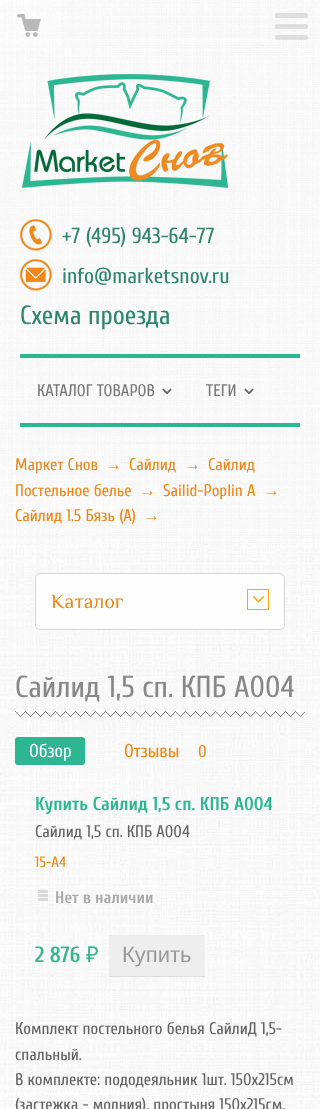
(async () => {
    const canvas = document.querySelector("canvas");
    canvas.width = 320;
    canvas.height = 1109;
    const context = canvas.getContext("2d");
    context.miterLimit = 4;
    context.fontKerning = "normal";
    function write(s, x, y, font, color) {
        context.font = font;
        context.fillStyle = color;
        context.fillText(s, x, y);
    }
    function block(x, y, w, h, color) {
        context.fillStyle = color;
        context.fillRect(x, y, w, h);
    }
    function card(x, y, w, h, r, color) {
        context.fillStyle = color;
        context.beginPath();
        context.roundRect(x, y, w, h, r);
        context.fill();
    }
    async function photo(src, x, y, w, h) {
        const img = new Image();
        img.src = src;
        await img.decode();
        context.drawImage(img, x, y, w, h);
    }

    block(0, 0, 320, 1109, "rgb(255, 255, 255)");
    await photo("media/1.png", 0, 0, 320, 1109);
    await photo("media/2.png", 275, 13, 33, 27);
    block(0, 0, 60, 51, "rgba(255, 255, 255, 0.4)");
    await photo("media/3.png", 17, 14, 24, 23);
    await photo("media/4.png", 22, 74, 206, 114);
    await photo("media/5.png", 20, 219, 32, 32);
    write("+7 (495) 943-64-77", 62, 243, "21.75px Cuprum", "rgb(46, 135, 108)");
    await photo("media/6.png", 20, 259, 32, 32);
    write("info@marketsnov.ru", 62, 283, "21.75px Cuprum", "rgb(46, 135, 108)");
    write("Схема проезда", 20, 324, "26.25px Cuprum", "rgb(46, 135, 108)");
    block(20, 354, 280, 4, "rgb(44, 182, 145)");
    block(20, 423, 280, 4, "rgb(44, 182, 145)");
    await photo("media/7.png", 162, 388, 10, 7);
    write("КАТАЛОГ ТОВАРОВ", 37, 396, "16.75px Cuprum", "rgb(119, 119, 119)");
    await photo("media/8.png", 244, 388, 10, 7);
    write("ТЕГИ", 206, 396, "16.75px Cuprum", "rgb(119, 119, 119)");
    write("Маркет Снов", 15, 470, "16.75px Cuprum", "rgb(238, 137, 25)");
    write("→", 105, 470, "16.75px Liberation Sans", "rgb(238, 137, 25)");
    write("Сайлид", 129, 470, "16.75px Cuprum", "rgb(238, 137, 25)");
    write("→", 184, 470, "16.75px Liberation Sans", "rgb(238, 137, 25)");
    write("Сайлид", 208, 470, "16.75px Cuprum", "rgb(238, 137, 25)");
    write("Постельное бельe", 15, 496, "16.75px Cuprum", "rgb(238, 137, 25)");
    write("→", 139, 496, "16.75px Liberation Sans", "rgb(238, 137, 25)");
    write("Sailid-Poplin А", 163, 496, "16.75px Cuprum", "rgb(238, 137, 25)");
    write("→", 263, 496, "16.75px Liberation Sans", "rgb(238, 137, 25)");
    write("Сайлид 1.5 Бязь (А)", 15, 521, "16.75px Cuprum", "rgb(238, 137, 25)");
    write("→", 143, 521, "16.75px Liberation Sans", "rgb(238, 137, 25)");
    context.fillStyle = "rgb(254, 254, 254)";
    context.beginPath();
    context.roundRect(35.5, 573.5, 249, 56, 4.5);
    context.fill();
    context.strokeStyle = "rgb(213, 213, 213)";
    context.stroke();
    write("Каталог", 51, 608, "20px Philosopher", "rgb(238, 137, 25)");
    context.strokeStyle = "rgb(255, 168, 0)";
    context.strokeRect(247.5, 589.5, 21, 20);
    await photo("media/9.png", 253, 596, 11, 7);
    await photo("media/10.png", 15, 711, 290, 6);
    write("Сайлид 1,5 сп. КПБ А004", 15, 697, "30.25px Cuprum", "rgb(136, 136, 136)");
    card(15, 737, 70, 28, 3, "rgb(44, 182, 145)");
    write("Обзор", 29, 757, "18.5px Cuprum", "rgb(254, 254, 254)");
    write("Отзывы", 124, 757, "18.5px Cuprum", "rgb(238, 137, 25)");
    write("0", 198, 757, "17px Cuprum", "rgb(238, 137, 25)");
    write("Купить Сайлид 1,5 сп. КПБ А004", 35, 810, "bold 18.5px Cuprum", "rgb(44, 182, 145)");
    write("Сайлид 1,5 сп. КПБ А004", 35, 837, "16.75px Cuprum", "rgb(98, 98, 98)");
    write("15-А4", 35, 867, "15px Cuprum", "rgb(238, 137, 25)");
    await photo("media/11.png", 38, 890, 10, 11);
    write("Нет в наличии", 55, 903, "bold 16.75px Cuprum", "rgb(170, 170, 170)");
    write("2 876", 35, 962, "bold 22px Cuprum", "rgb(57, 181, 144)");
    write("₽", 86, 962, "22px Noto Sans", "rgb(57, 181, 144)");
    context.fillStyle = "rgba(0, 0, 0, 0.1)";
    context.filter = "blur(0.5px)";
    context.beginPath();
    context.rect(109, 936, 96, 41);
    context.fill();
    context.filter = "none";
    block(109, 935, 96, 41, "rgb(238, 238, 238)");
    write("Купить", 122, 962, "22px Liberation Sans", "rgb(153, 153, 153)");
    write("Комплект постельного белья СайлиД 1,5-", 15, 1034, "16.75px Cuprum", "rgb(98, 98, 98)");
    write("спальный.", 15, 1060, "16.75px Cuprum", "rgb(98, 98, 98)");
    write("В комплекте: пододеяльник 1шт. 150х215см", 15, 1085, "16.75px Cuprum", "rgb(98, 98, 98)");
    write("(застежка - молния), простыня 150х215см,", 15, 1110, "16.75px Cuprum", "rgb(98, 98, 98)");
})();
